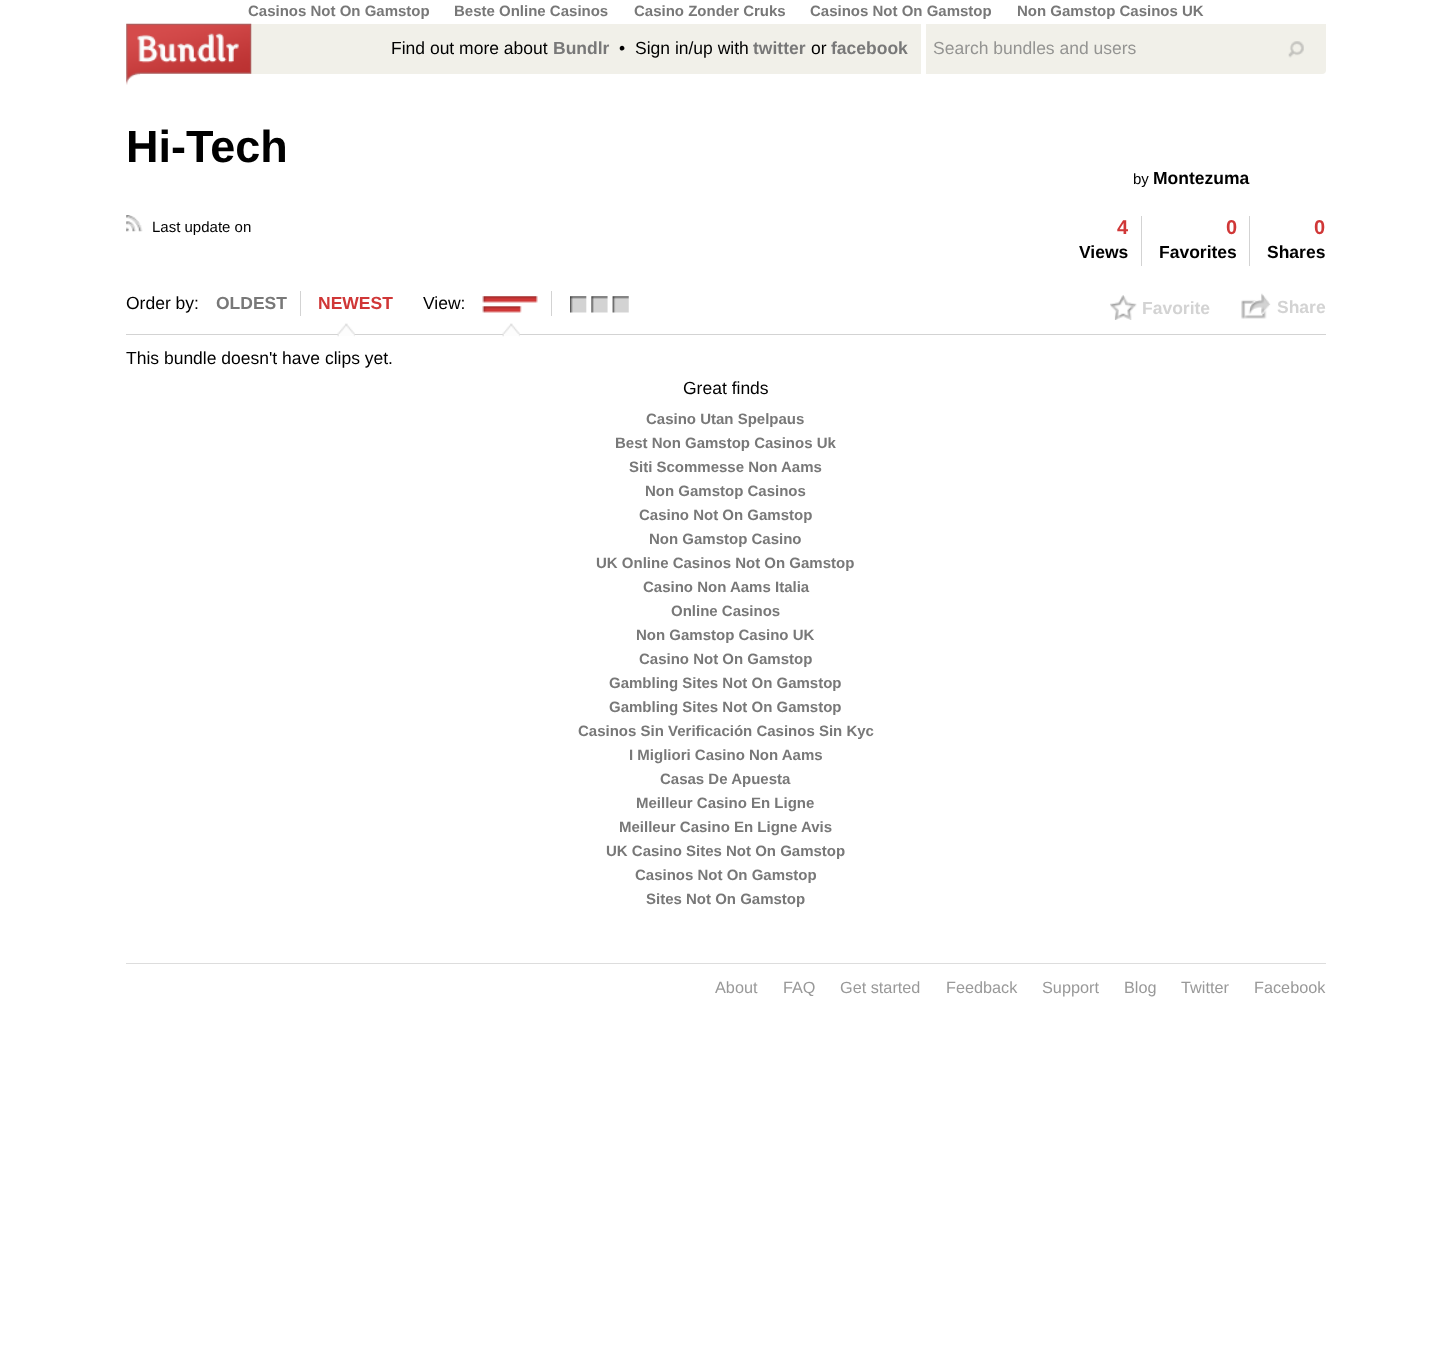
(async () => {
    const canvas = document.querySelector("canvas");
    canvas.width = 1451;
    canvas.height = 1362;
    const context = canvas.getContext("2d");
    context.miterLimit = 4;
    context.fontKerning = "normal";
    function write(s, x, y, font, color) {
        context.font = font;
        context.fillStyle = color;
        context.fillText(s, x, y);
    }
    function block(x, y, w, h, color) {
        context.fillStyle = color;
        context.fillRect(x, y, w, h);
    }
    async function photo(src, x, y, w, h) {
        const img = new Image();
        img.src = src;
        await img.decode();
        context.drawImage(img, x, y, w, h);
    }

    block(0, 0, 1451, 1362, "rgb(255, 255, 255)");
    write("Casinos Not On Gamstop", 248, 16, "bold 15px Liberation Sans", "rgb(120, 120, 120)");
    write("Beste Online Casinos", 454, 16, "bold 15px Liberation Sans", "rgb(120, 120, 120)");
    write("Casino Zonder Cruks", 634, 16, "bold 15px Liberation Sans", "rgb(120, 120, 120)");
    write("Casinos Not On Gamstop", 810, 16, "bold 15px Liberation Sans", "rgb(120, 120, 120)");
    write("Non Gamstop Casinos UK", 1017, 16, "bold 15px Liberation Sans", "rgb(120, 120, 120)");
    context.fillStyle = "rgb(241, 240, 233)";
    context.beginPath();
    context.roundRect(126, 24, 1200, 50, [0, 0, 4, 0]);
    context.fill();
    await photo("media/1.png", 126, 23, 126, 62);
    block(921, 24, 5, 50, "rgb(255, 255, 255)");
    write("Find out more about", 391, 54, "17.5px Liberation Sans", "rgb(0, 0, 0)");
    write("Bundlr", 553, 54, "bold 17.5px Liberation Sans", "rgb(120, 120, 120)");
    write("•", 619, 54, "17.5px Liberation Sans", "rgb(0, 0, 0)");
    write("Sign in/up with", 635, 54, "17.5px Liberation Sans", "rgb(0, 0, 0)");
    write("twitter", 753, 54, "bold 17.5px Liberation Sans", "rgb(120, 120, 120)");
    write("or", 811, 54, "17.5px Liberation Sans", "rgb(0, 0, 0)");
    write("facebook", 831, 54, "bold 17.5px Liberation Sans", "rgb(120, 120, 120)");
    write("Search bundles and users", 933, 54, "17.5px Liberation Sans", "rgb(148, 148, 146)");
    await photo("media/2.png", 1288, 41, 16, 17);
    write("Hi-Tech", 126, 162, "bold 45px Liberation Sans", "rgb(0, 0, 0)");
    await photo("media/3.png", 126, 215, 17, 17);
    write("Last update on", 152, 232, "15px Liberation Sans", "rgb(0, 0, 0)");
    write("by", 1133, 184, "15px Liberation Sans", "rgb(0, 0, 0)");
    write("Montezuma", 1153, 184, "bold 17.5px Liberation Sans", "rgb(0, 0, 0)");
    block(1141, 216, 1, 50, "rgb(211, 211, 211)");
    write("4", 1117, 234, "bold 20px Liberation Sans", "rgb(208, 55, 55)");
    write("Views", 1079, 258, "bold 17.5px Liberation Sans", "rgb(0, 0, 0)");
    block(1249, 216, 1, 50, "rgb(211, 211, 211)");
    write("0", 1226, 234, "bold 20px Liberation Sans", "rgb(208, 55, 55)");
    write("Favorites", 1159, 258, "bold 17.5px Liberation Sans", "rgb(0, 0, 0)");
    write("0", 1314, 234, "bold 20px Liberation Sans", "rgb(208, 55, 55)");
    write("Shares", 1267, 258, "bold 17.5px Liberation Sans", "rgb(0, 0, 0)");
    block(126, 334, 1200, 1, "rgb(211, 211, 211)");
    write("Order by:", 126, 309, "17.5px Liberation Sans", "rgb(0, 0, 0)");
    block(300, 291, 1, 25, "rgb(211, 211, 211)");
    write("OLDEST", 216, 309, "bold 17.5px Liberation Sans", "rgb(120, 120, 120)");
    write("NEWEST", 318, 309, "bold 17.5px Liberation Sans", "rgb(208, 55, 55)");
    await photo("media/4.png", 337, 323, 18, 14);
    write("View:", 423, 309, "17.5px Liberation Sans", "rgb(0, 0, 0)");
    block(551, 291, 1, 25, "rgb(211, 211, 211)");
    await photo("media/5.png", 482, 296, 56, 17);
    await photo("media/6.png", 502, 323, 18, 14);
    await photo("media/7.png", 570, 296, 59, 17);
    await photo("media/8.png", 1110, 295, 27, 25);
    write("Favorite", 1142, 314, "bold 17.5px Liberation Sans", "rgb(211, 211, 211)");
    await photo("media/9.png", 1241, 293, 30, 26);
    write("Share", 1277, 313, "bold 17.5px Liberation Sans", "rgb(211, 211, 211)");
    write("This bundle doesn't have clips yet.", 126, 364, "17.5px Liberation Sans", "rgb(0, 0, 0)");
    write("Great finds", 683, 394, "17.5px Liberation Sans", "rgb(0, 0, 0)");
    write("Casino Utan Spelpaus", 646, 424, "bold 15px Liberation Sans", "rgb(120, 120, 120)");
    write("Best Non Gamstop Casinos Uk", 615, 448, "bold 15px Liberation Sans", "rgb(120, 120, 120)");
    write("Siti Scommesse Non Aams", 629, 472, "bold 15px Liberation Sans", "rgb(120, 120, 120)");
    write("Non Gamstop Casinos", 645, 496, "bold 15px Liberation Sans", "rgb(120, 120, 120)");
    write("Casino Not On Gamstop", 639, 520, "bold 15px Liberation Sans", "rgb(120, 120, 120)");
    write("Non Gamstop Casino", 649, 544, "bold 15px Liberation Sans", "rgb(120, 120, 120)");
    write("UK Online Casinos Not On Gamstop", 596, 568, "bold 15px Liberation Sans", "rgb(120, 120, 120)");
    write("Casino Non Aams Italia", 643, 592, "bold 15px Liberation Sans", "rgb(120, 120, 120)");
    write("Online Casinos", 671, 616, "bold 15px Liberation Sans", "rgb(120, 120, 120)");
    write("Non Gamstop Casino UK", 636, 640, "bold 15px Liberation Sans", "rgb(120, 120, 120)");
    write("Casino Not On Gamstop", 639, 664, "bold 15px Liberation Sans", "rgb(120, 120, 120)");
    write("Gambling Sites Not On Gamstop", 609, 688, "bold 15px Liberation Sans", "rgb(120, 120, 120)");
    write("Gambling Sites Not On Gamstop", 609, 712, "bold 15px Liberation Sans", "rgb(120, 120, 120)");
    write("Casinos Sin Verificación Casinos Sin Kyc", 578, 736, "bold 15px Liberation Sans", "rgb(120, 120, 120)");
    write("I Migliori Casino Non Aams", 629, 760, "bold 15px Liberation Sans", "rgb(120, 120, 120)");
    write("Casas De Apuesta", 660, 784, "bold 15px Liberation Sans", "rgb(120, 120, 120)");
    write("Meilleur Casino En Ligne", 636, 808, "bold 15px Liberation Sans", "rgb(120, 120, 120)");
    write("Meilleur Casino En Ligne Avis", 619, 832, "bold 15px Liberation Sans", "rgb(120, 120, 120)");
    write("UK Casino Sites Not On Gamstop", 606, 856, "bold 15px Liberation Sans", "rgb(120, 120, 120)");
    write("Casinos Not On Gamstop", 635, 880, "bold 15px Liberation Sans", "rgb(120, 120, 120)");
    write("Sites Not On Gamstop", 646, 904, "bold 15px Liberation Sans", "rgb(120, 120, 120)");
    block(126, 963, 1200, 1, "rgb(221, 221, 221)");
    write("About", 715, 993, "16.25px Liberation Sans", "rgb(153, 153, 153)");
    write("FAQ", 783, 993, "16.25px Liberation Sans", "rgb(153, 153, 153)");
    write("Get started", 840, 993, "16.25px Liberation Sans", "rgb(153, 153, 153)");
    write("Feedback", 946, 993, "16.25px Liberation Sans", "rgb(153, 153, 153)");
    write("Support", 1042, 993, "16.25px Liberation Sans", "rgb(153, 153, 153)");
    write("Blog", 1124, 993, "16.25px Liberation Sans", "rgb(153, 153, 153)");
    write("Twitter", 1181, 993, "16.25px Liberation Sans", "rgb(153, 153, 153)");
    write("Facebook", 1254, 993, "16.25px Liberation Sans", "rgb(153, 153, 153)");
})();
